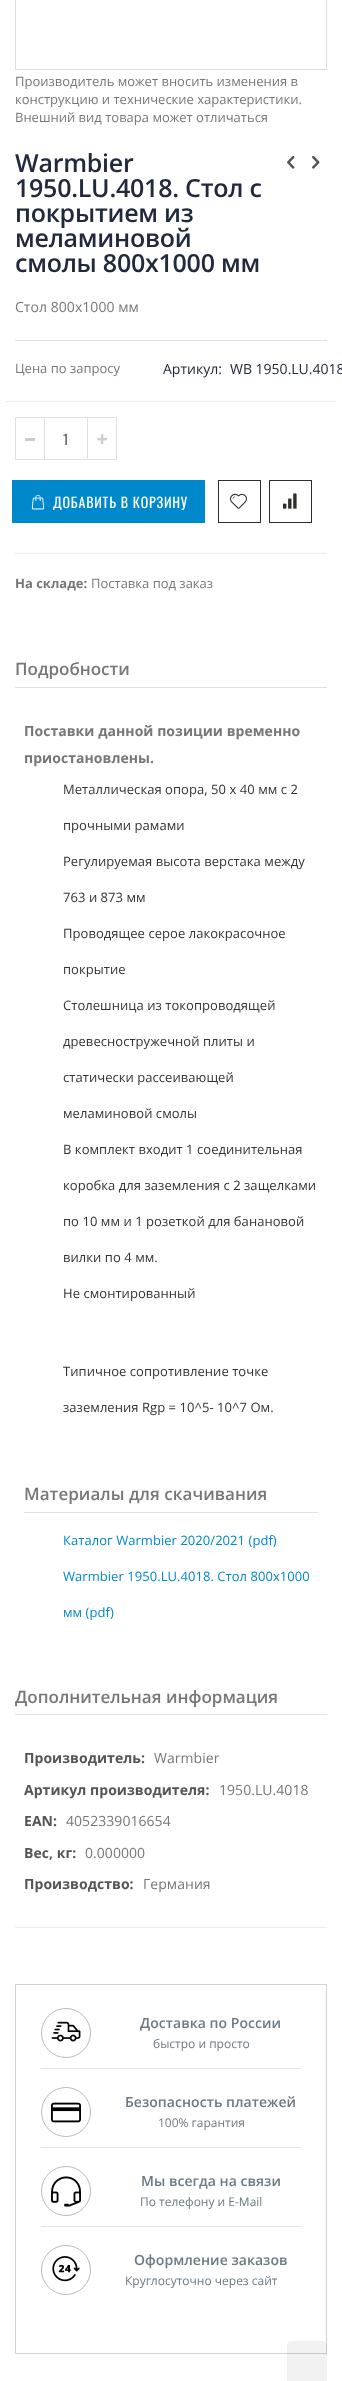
(async () => {
    const canvas = document.querySelector("canvas");
    canvas.width = 342;
    canvas.height = 2381;
    const context = canvas.getContext("2d");
    context.miterLimit = 4;
    context.fontKerning = "none";
    function write(s, x, y, font, color) {
        context.font = font;
        context.fillStyle = color;
        context.fillText(s, x, y);
    }
    function block(x, y, w, h, color) {
        context.fillStyle = color;
        context.fillRect(x, y, w, h);
    }
    async function photo(src, x, y, w, h) {
        const img = new Image();
        img.src = src;
        await img.decode();
        context.drawImage(img, x, y, w, h);
    }

    block(0, 0, 342, 2381, "rgb(255, 255, 255)");
    context.strokeStyle = "rgb(221, 221, 221)";
    context.strokeRect(15.5, -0.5, 311, 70);
    write("Производитель может вносить изменения в", 15, 86, "13px Open Sans", "rgb(119, 119, 119)");
    write("конструкцию и технические характеристики.", 15, 104, "13px Open Sans", "rgb(119, 119, 119)");
    write("Внешний вид товара может отличаться", 15, 122, "13px Open Sans", "rgb(119, 119, 119)");
    context.letterSpacing = "-0.25px";
    write("Warmbier", 15, 172, "600 25px Open Sans", "rgb(33, 41, 60)");
    write("1950.LU.4018. Стол с", 15, 197, "600 25px Open Sans", "rgb(33, 41, 60)");
    write("покрытием из", 15, 222, "600 25px Open Sans", "rgb(33, 41, 60)");
    write("меламиновой", 15, 247, "600 25px Open Sans", "rgb(33, 41, 60)");
    write("смолы 800х1000 мм", 15, 272, "600 25px Open Sans", "rgb(33, 41, 60)");
    await photo("media/1.png", 287, 155, 8, 14);
    await photo("media/2.png", 312, 155, 8, 14);
    block(15, 340, 312, 1, "rgb(218, 226, 230)");
    context.letterSpacing = "0.05px";
    write("Стол 800х1000 мм", 15, 312, "14px Open Sans", "rgb(119, 119, 119)");
    block(6, 401, 330, 1, "rgb(235, 235, 235)");
    context.letterSpacing = "0px";
    write("Цена по запросу", 15, 373, "13px Open Sans", "rgb(119, 119, 119)");
    write("Артикул:", 163, 374, "14px Open Sans", "rgb(33, 41, 60)");
    write("WB 1950.LU.4018", 230, 374, "14px Open Sans", "rgb(33, 41, 60)");
    context.strokeStyle = "rgb(218, 226, 230)";
    context.strokeRect(44.5, 417.5, 43, 42);
    context.strokeRect(15.5, 417.5, 29, 42);
    block(25, 438, 10, 3, "rgb(204, 204, 204)");
    context.strokeRect(87.5, 417.5, 29, 42);
    await photo("media/3.png", 97, 434, 10, 10);
    write("1", 63, 445, "14px Oswald", "rgb(97, 96, 90)");
    block(12, 480, 193, 43, "rgb(0, 136, 204)");
    await photo("media/4.png", 31, 494, 14, 16);
    context.letterSpacing = "0.75px";
    write("ДОБАВИТЬ В КОРЗИНУ", 53, 508, "14px Oswald", "rgb(255, 255, 255)");
    context.strokeStyle = "rgb(48, 46, 42)";
    context.strokeRect(218.5, 480.5, 42, 42);
    await photo("media/5.png", 230, 493, 17, 16);
    context.strokeRect(269.5, 480.5, 42, 42);
    await photo("media/6.png", 283, 493, 14, 16);
    block(15, 553, 312, 1, "rgb(235, 235, 235)");
    context.letterSpacing = "0px";
    write("На складе:", 15, 588, "bold 13px Open Sans", "rgb(119, 119, 119)");
    write("Поставка под заказ", 91, 588, "13px Open Sans", "rgb(119, 119, 119)");
    block(15, 1927, 312, 1, "rgb(238, 238, 238)");
    block(15, 687, 312, 1, "rgb(218, 226, 230)");
    write("Подробности", 15, 675, "600 17px Open Sans", "rgb(119, 119, 119)");
    context.letterSpacing = "0.05px";
    write("Поставки данной позиции временно", 24, 736, "bold 14px Open Sans", "rgb(119, 119, 119)");
    write("приостановлены.", 24, 763, "bold 14px Open Sans", "rgb(119, 119, 119)");
    write("Металлическая опора, 50 x 40 мм с 2", 63, 794, "13px Open Sans", "rgb(51, 51, 51)");
    write("прочными рамами", 63, 830, "13px Open Sans", "rgb(51, 51, 51)");
    write("Регулируемая высота верстака между", 63, 866, "13px Open Sans", "rgb(51, 51, 51)");
    write("763 и 873 мм", 63, 902, "13px Open Sans", "rgb(51, 51, 51)");
    write("Проводящее серое лакокрасочное", 63, 938, "13px Open Sans", "rgb(51, 51, 51)");
    write("покрытие", 63, 974, "13px Open Sans", "rgb(51, 51, 51)");
    write("Столешница из токопроводящей", 63, 1010, "13px Open Sans", "rgb(51, 51, 51)");
    write("древесностружечной плиты и", 63, 1046, "13px Open Sans", "rgb(51, 51, 51)");
    write("статически рассеивающей", 63, 1082, "13px Open Sans", "rgb(51, 51, 51)");
    write("меламиновой смолы", 63, 1118, "13px Open Sans", "rgb(51, 51, 51)");
    write("В комплект входит 1 соединительная", 63, 1154, "13px Open Sans", "rgb(51, 51, 51)");
    write("коробка для заземления с 2 защелками", 63, 1190, "13px Open Sans", "rgb(51, 51, 51)");
    write("по 10 мм и 1 розеткой для банановой", 63, 1226, "13px Open Sans", "rgb(51, 51, 51)");
    write("вилки по 4 мм.", 63, 1262, "13px Open Sans", "rgb(51, 51, 51)");
    write("Не смонтированный", 63, 1298, "13px Open Sans", "rgb(51, 51, 51)");
    write("Типичное сопротивление точке", 63, 1376, "13px Open Sans", "rgb(51, 51, 51)");
    write("заземления Rgp = 10^5- 10^7 Ом.", 63, 1412, "13px Open Sans", "rgb(51, 51, 51)");
    block(24, 1512, 294, 1, "rgb(218, 226, 230)");
    write("Материалы для скачивания", 24, 1500, "600 17px Open Sans", "rgb(119, 119, 119)");
    write("Каталог Warmbier 2020/2021 (pdf)", 63, 1545, "13px Open Sans", "rgb(0, 136, 204)");
    write("Warmbier 1950.LU.4018. Стол 800х1000", 63, 1581, "13px Open Sans", "rgb(0, 136, 204)");
    write("мм (pdf)", 63, 1617, "13px Open Sans", "rgb(0, 136, 204)");
    block(15, 1714, 312, 1, "rgb(218, 226, 230)");
    context.letterSpacing = "0px";
    write("Дополнительная информация", 15, 1703, "600 17px Open Sans", "rgb(119, 119, 119)");
    context.letterSpacing = "0.05px";
    write("Производитель:", 24, 1763, "bold 14px Open Sans", "rgb(85, 85, 85)");
    write("Warmbier", 154, 1763, "14px Open Sans", "rgb(119, 119, 119)");
    write("Артикул производителя:", 24, 1795, "bold 14px Open Sans", "rgb(85, 85, 85)");
    write("1950.LU.4018", 219, 1795, "14px Open Sans", "rgb(119, 119, 119)");
    write("EAN:", 24, 1826, "bold 14px Open Sans", "rgb(85, 85, 85)");
    write("4052339016654", 66, 1826, "14px Open Sans", "rgb(119, 119, 119)");
    write("Вес, кг:", 24, 1858, "bold 14px Open Sans", "rgb(85, 85, 85)");
    write("0.000000", 85, 1858, "14px Open Sans", "rgb(119, 119, 119)");
    write("Производство:", 24, 1889, "bold 14px Open Sans", "rgb(85, 85, 85)");
    write("Германия", 143, 1889, "14px Open Sans", "rgb(119, 119, 119)");
    context.strokeStyle = "rgb(210, 210, 210)";
    context.strokeRect(15.5, 1984.5, 311, 369);
    block(41, 2068, 260, 1, "rgb(222, 229, 232)");
    context.beginPath();
    context.arc(66, 2033, 24.5, 0, Math.PI * 2);
    context.strokeStyle = "rgb(187, 187, 187)";
    context.stroke();
    await photo("media/7.png", 51, 2021, 30, 21);
    write("Доставка по России", 140, 2028, "600 14px Open Sans", "rgb(107, 122, 131)");
    context.letterSpacing = "0px";
    write("быстро и просто", 153, 2048, "12px Open Sans", "rgb(107, 122, 131)");
    block(41, 2147, 260, 1, "rgb(222, 229, 232)");
    context.beginPath();
    context.arc(66, 2112, 24.5, 0, Math.PI * 2);
    context.stroke();
    await photo("media/8.png", 51, 2102, 30, 21);
    context.letterSpacing = "0.05px";
    write("Безопасность платежей", 125, 2107, "600 14px Open Sans", "rgb(107, 122, 131)");
    context.letterSpacing = "0px";
    write("100% гарантия", 158, 2127, "12px Open Sans", "rgb(107, 122, 131)");
    block(41, 2226, 260, 1, "rgb(222, 229, 232)");
    context.beginPath();
    context.arc(66, 2191, 24.5, 0, Math.PI * 2);
    context.stroke();
    await photo("media/9.png", 51, 2176, 30, 31);
    context.letterSpacing = "0.05px";
    write("Мы всегда на связи", 141, 2186, "600 14px Open Sans", "rgb(107, 122, 131)");
    context.letterSpacing = "0px";
    write("По телефону и E-Mail", 140, 2206, "12px Open Sans", "rgb(107, 122, 131)");
    context.beginPath();
    context.arc(66, 2270, 24.5, 0, Math.PI * 2);
    context.stroke();
    await photo("media/10.png", 52, 2256, 28, 26);
    context.letterSpacing = "0.05px";
    write("Оформление заказов", 134, 2265, "600 14px Open Sans", "rgb(107, 122, 131)");
    context.letterSpacing = "0px";
    write("Круглосуточно через сайт", 125, 2285, "12px Open Sans", "rgb(107, 122, 131)");
    context.fillStyle = "rgba(64, 64, 64, 0.07)";
    context.beginPath();
    context.roundRect(287, 2341, 40, 40, [5, 5, 0, 0]);
    context.fill();
})();
